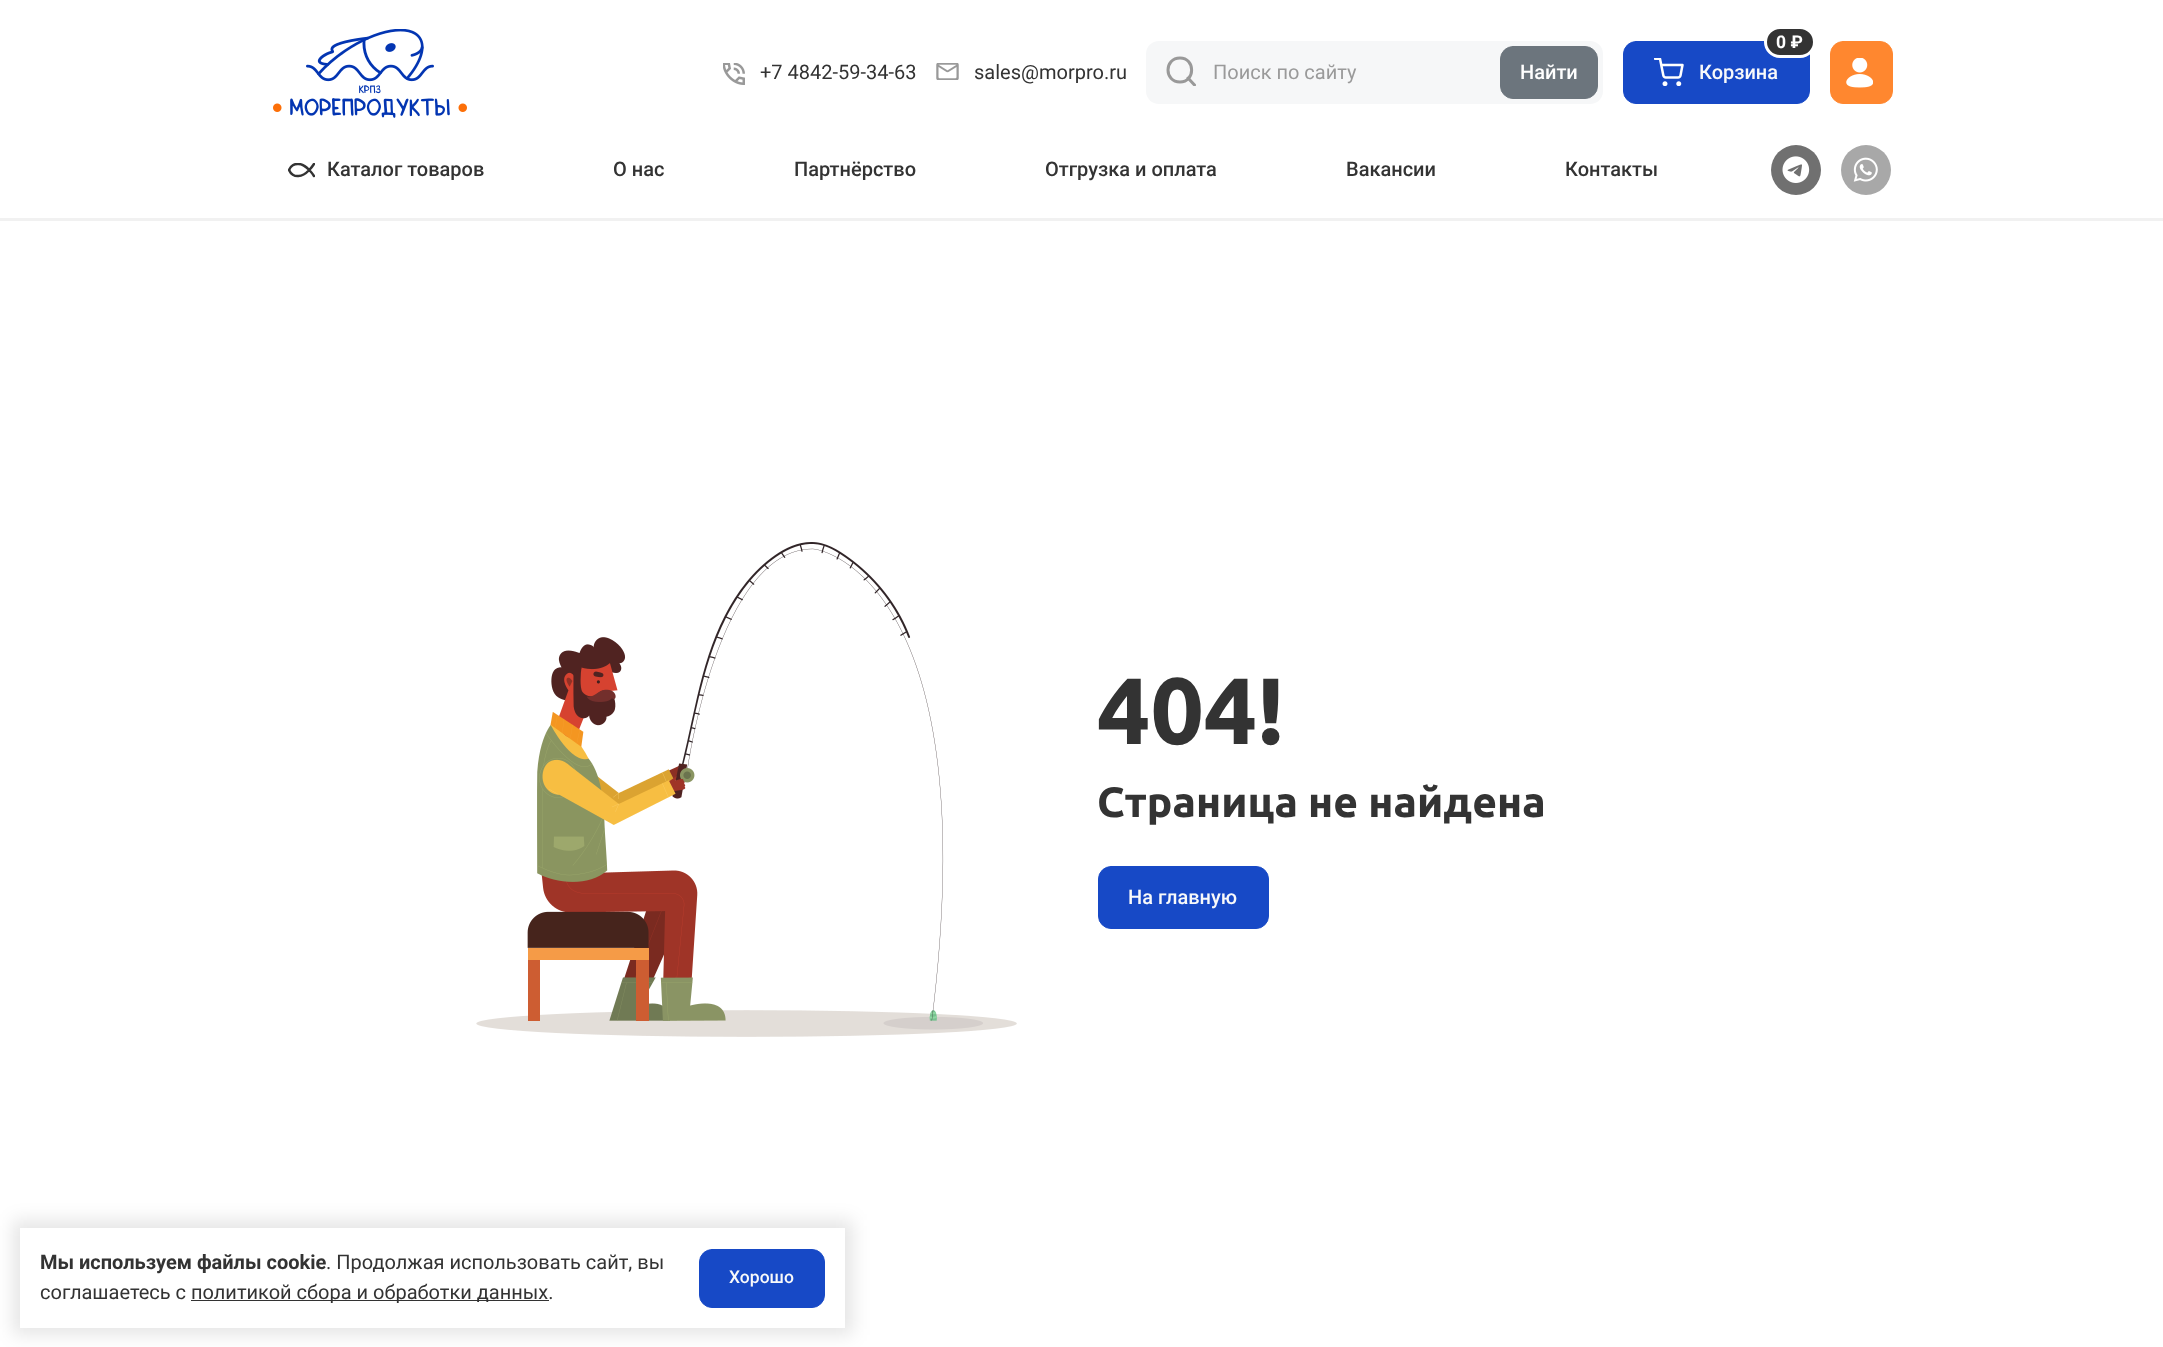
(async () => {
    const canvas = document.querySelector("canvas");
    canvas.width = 2163;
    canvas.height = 1347;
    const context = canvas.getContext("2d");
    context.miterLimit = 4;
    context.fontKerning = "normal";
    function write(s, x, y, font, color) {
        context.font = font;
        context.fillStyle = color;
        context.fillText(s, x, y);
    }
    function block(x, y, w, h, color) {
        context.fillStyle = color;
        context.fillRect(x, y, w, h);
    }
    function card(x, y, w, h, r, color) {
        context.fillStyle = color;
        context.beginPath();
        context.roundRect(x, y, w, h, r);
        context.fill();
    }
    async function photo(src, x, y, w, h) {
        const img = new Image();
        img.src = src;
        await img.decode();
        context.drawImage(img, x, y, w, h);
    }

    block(0, 0, 2163, 1347, "rgb(255, 255, 255)");
    await photo("media/1.png", 273, 29, 194, 89);
    await photo("media/2.png", 723, 63, 22, 22);
    write("+7 4842-59-34-63", 760, 79, "20px Roboto", "rgb(51, 51, 51)");
    await photo("media/3.png", 936, 63, 23, 17);
    write("sales@morpro.ru", 974, 79, "20px Roboto", "rgb(51, 51, 51)");
    card(1146, 41, 457, 63, 13, "rgb(246, 247, 248)");
    context.beginPath();
    context.moveTo(1180, 82);
    context.bezierCurveTo(1195.5, 82, 1195.5, 58, 1180, 58);
    context.bezierCurveTo(1164, 58, 1164, 82, 1180, 82);
    context.closePath();
    context.strokeStyle = "rgb(153, 153, 153)";
    context.lineWidth = 3;
    context.lineCap = "round";
    context.lineJoin = "round";
    context.stroke();
    context.save();
    context.beginPath();
    context.rect(1166, 56, 30, 30);
    context.clip();
    context.beginPath();
    context.moveTo(1194.5, 85);
    context.lineTo(1188, 78);
    context.stroke();
    context.restore();
    write("Поиск по сайту", 1213, 79, "20px Roboto", "rgb(154, 154, 154)");
    context.fillStyle = "rgb(108, 117, 125)";
    context.beginPath();
    context.roundRect(1500.5, 46.5, 97, 52, 12.5);
    context.fill();
    context.strokeStyle = "rgb(108, 117, 125)";
    context.lineWidth = 1;
    context.lineJoin = "miter";
    context.stroke();
    write("Найти", 1520, 79, "500 20px Roboto", "rgb(255, 255, 255)");
    context.fillStyle = "rgb(23, 73, 198)";
    context.beginPath();
    context.roundRect(1623.5, 41.5, 186, 62, 12.5);
    context.fill();
    context.strokeStyle = "rgb(23, 73, 198)";
    context.stroke();
    context.save();
    context.beginPath();
    context.rect(273, 29, 1620, 89);
    context.clip();
    context.fillStyle = "rgb(51, 51, 51)";
    context.beginPath();
    context.roundRect(1765.5, 27.5, 49, 29, 14.5);
    context.fill();
    context.strokeStyle = "rgb(255, 255, 255)";
    context.lineWidth = 3;
    context.stroke();
    context.restore();
    write("0 ₽", 1776, 48, "bold 17.5px Roboto", "rgb(255, 255, 255)");
    await photo("media/4.png", 1654, 58, 30, 28);
    write("Корзина", 1699, 79, "500 20px Roboto", "rgb(248, 249, 250)");
    context.fillStyle = "rgb(255, 135, 47)";
    context.beginPath();
    context.roundRect(1830.5, 41.5, 62, 62, 12.5);
    context.fill();
    context.strokeStyle = "rgb(255, 135, 47)";
    context.stroke();
    await photo("media/5.png", 1846, 58, 27, 30);
    block(0, 218, 2163, 3, "rgb(241, 241, 241)");
    context.save();
    context.beginPath();
    context.rect(288, 163, 27, 15);
    context.clip();
    context.beginPath();
    context.moveTo(314, 164);
    context.bezierCurveTo(314, 164, 306.5, 176, 298.5, 176);
    context.bezierCurveTo(294.5, 176.5, 290.5, 174, 289, 170);
    context.bezierCurveTo(290.5, 166, 294.5, 163.5, 298.5, 164);
    context.bezierCurveTo(306.5, 164, 314, 176, 314, 176);
    context.strokeStyle = "rgb(51, 51, 51)";
    context.lineWidth = 2.5;
    context.lineJoin = "round";
    context.stroke();
    context.restore();
    write("Каталог товаров", 327, 176, "500 20px Roboto", "rgb(51, 51, 51)");
    write("О нас", 613, 176, "500 20px Roboto", "rgb(51, 51, 51)");
    write("Партнёрство", 794, 176, "500 20px Roboto", "rgb(51, 51, 51)");
    write("Отгрузка и оплата", 1045, 176, "500 20px Roboto", "rgb(51, 51, 51)");
    write("Вакансии", 1346, 176, "500 20px Roboto", "rgb(51, 51, 51)");
    write("Контакты", 1565, 176, "500 20px Roboto", "rgb(51, 51, 51)");
    context.fillStyle = "rgb(112, 112, 112)";
    context.beginPath();
    context.arc(1796, 170, 25, 0, Math.PI * 2);
    context.fill();
    await photo("media/6.png", 1782, 156, 28, 27);
    context.fillStyle = "rgb(168, 168, 168)";
    context.beginPath();
    context.arc(1866, 170, 25, 0, Math.PI * 2);
    context.fill();
    await photo("media/7.png", 1853, 157, 25, 25);
    await photo("media/8.png", 476, 542, 541, 495);
    write("404!", 1097, 744, "bold 94px Ubuntu", "rgb(51, 51, 51)");
    write("Страница не найдена", 1097, 817, "bold 42.5px Ubuntu", "rgb(51, 51, 51)");
    context.fillStyle = "rgb(23, 73, 198)";
    context.beginPath();
    context.roundRect(1098.5, 866.5, 170, 62, 12.5);
    context.fill();
    context.strokeStyle = "rgb(23, 73, 198)";
    context.stroke();
    write("На главную", 1128, 904, "500 20px Roboto", "rgb(248, 249, 250)");
    context.fillStyle = "rgba(0, 0, 0, 0.1)";
    context.filter = "blur(9px)";
    context.beginPath();
    context.rect(13, 1220, 840, 115);
    context.fill();
    context.filter = "none";
    block(20, 1228, 825, 100, "rgb(255, 255, 255)");
    write("Мы используем файлы cookie", 40, 1269, "bold 20px Roboto", "rgb(51, 51, 51)");
    write(". Продолжая использовать сайт, вы", 326, 1269, "20px Roboto", "rgb(51, 51, 51)");
    write("соглашаетесь с", 40, 1299, "20px Roboto", "rgb(51, 51, 51)");
    block(191, 1300, 358, 1, "rgb(51, 51, 51)");
    write("политикой сбора и обработки данных.", 191, 1299, "20px Roboto", "rgb(51, 51, 51)");
    context.fillStyle = "rgb(23, 73, 198)";
    context.beginPath();
    context.roundRect(699.5, 1249.5, 125, 58, 12.5);
    context.fill();
    context.stroke();
    write("Хорошо", 729, 1283, "500 17.5px Roboto", "rgb(248, 249, 250)");
})();
